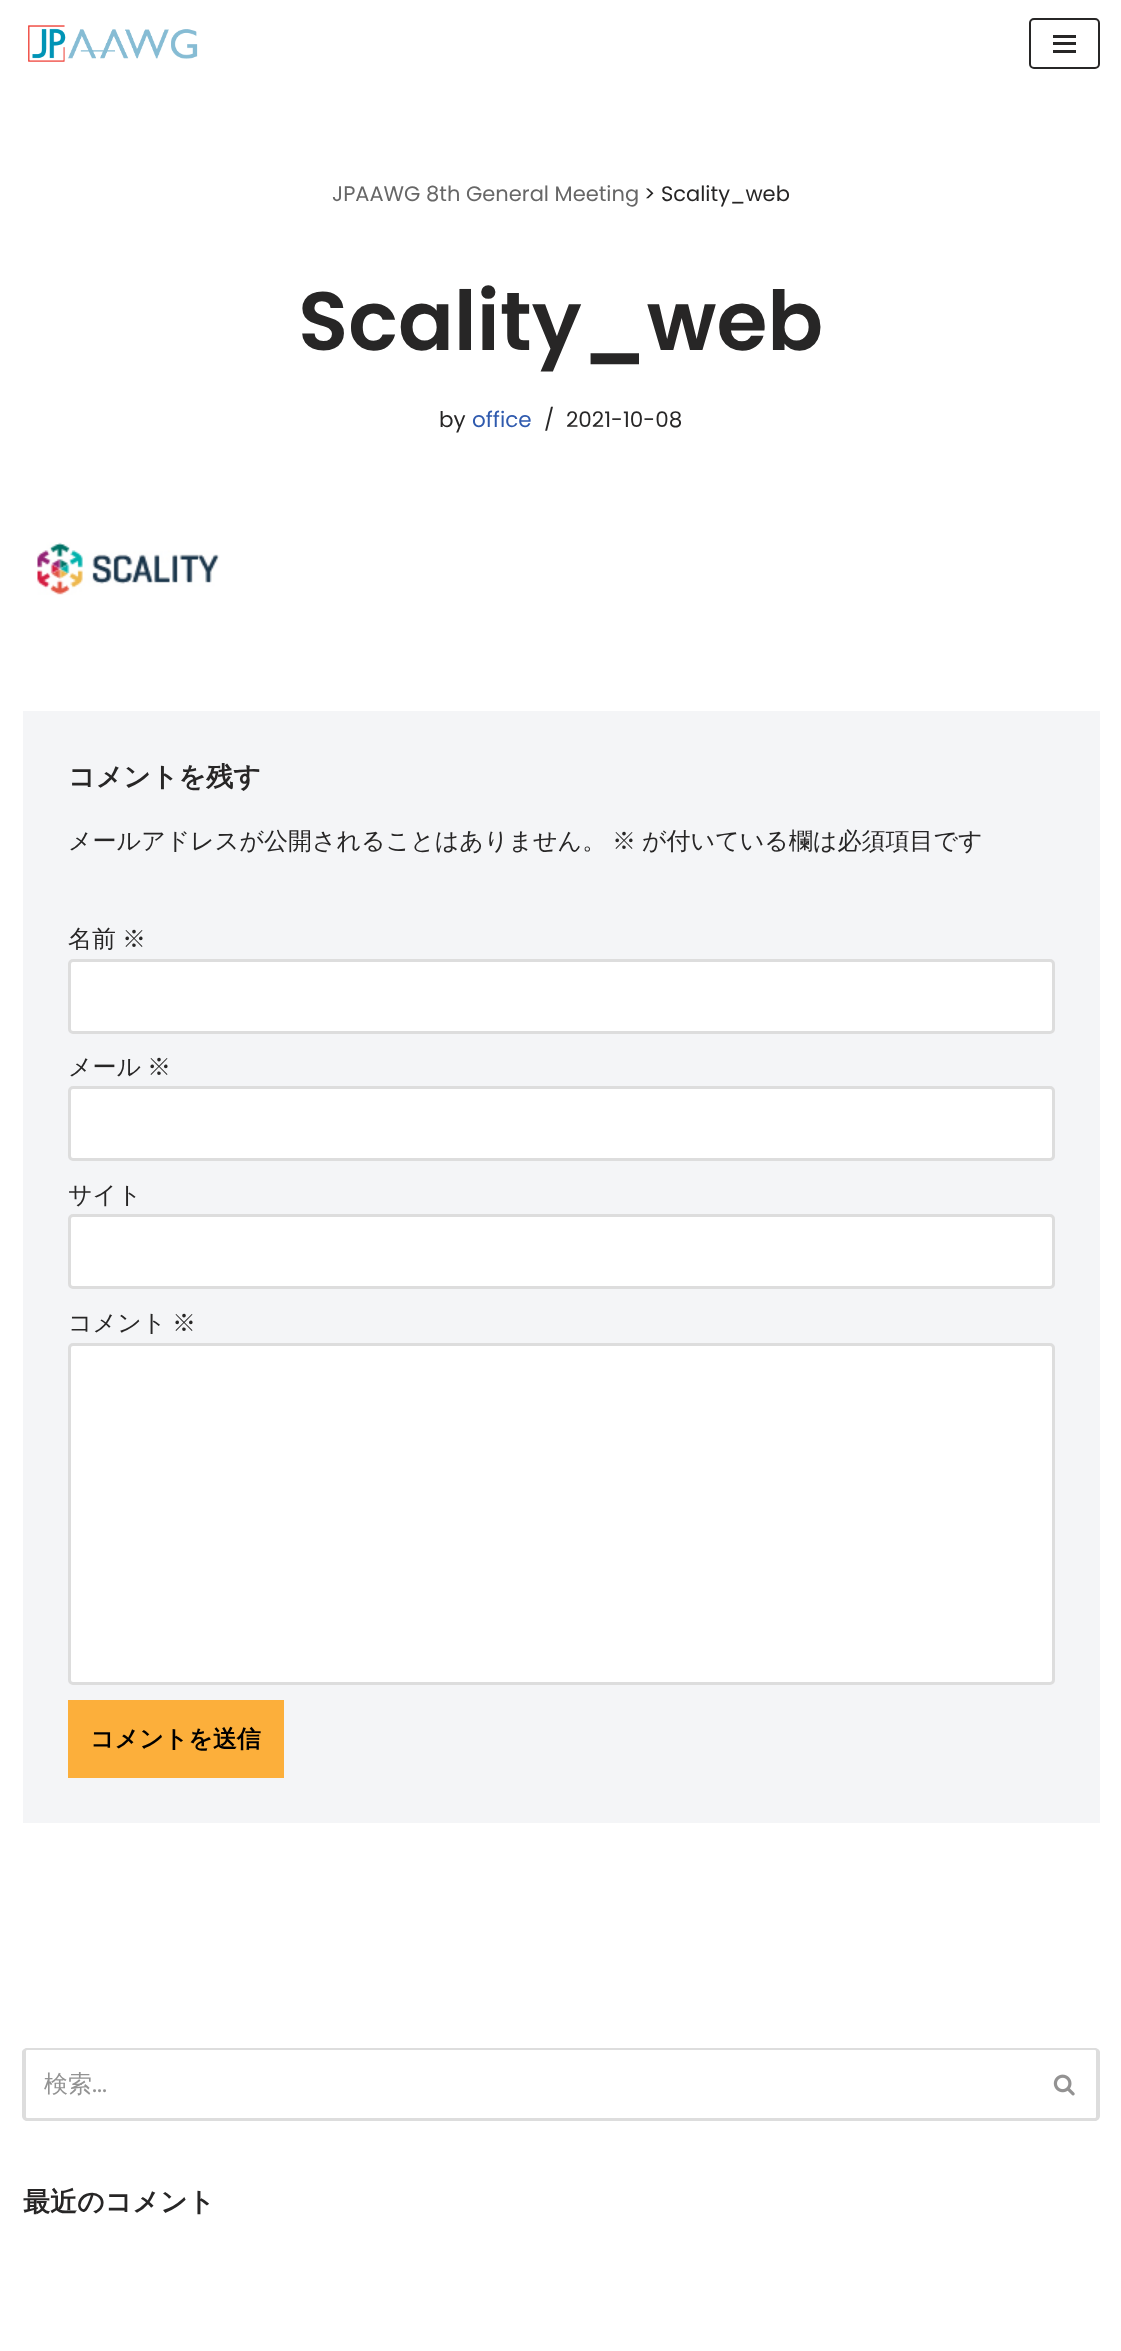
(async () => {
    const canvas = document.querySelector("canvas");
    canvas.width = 1121;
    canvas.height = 2351;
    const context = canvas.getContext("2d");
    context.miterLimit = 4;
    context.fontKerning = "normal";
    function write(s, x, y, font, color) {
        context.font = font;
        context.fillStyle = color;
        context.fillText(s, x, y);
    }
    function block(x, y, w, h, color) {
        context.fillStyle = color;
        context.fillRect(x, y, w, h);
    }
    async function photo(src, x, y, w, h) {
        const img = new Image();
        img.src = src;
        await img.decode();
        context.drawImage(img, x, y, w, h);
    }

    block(0, 0, 1121, 2351, "rgb(255, 255, 255)");
    await photo("media/1.png", 28, 25, 170, 37);
    context.beginPath();
    context.roundRect(1030, 19, 69, 49, 4);
    context.strokeStyle = "rgb(39, 38, 38)";
    context.lineWidth = 2;
    context.stroke();
    block(1053, 35, 23, 3, "rgb(39, 38, 38)");
    block(1053, 42, 23, 3, "rgb(39, 38, 38)");
    block(1053, 50, 23, 3, "rgb(39, 38, 38)");
    write("JPAAWG 8th General Meeting", 332, 201, "21px Poppins", "rgb(103, 103, 103)");
    write("> Scality_web", 644, 201, "21px Poppins", "rgb(39, 38, 38)");
    write("Scality_web", 298, 350, "600 82.5px Poppins", "rgb(39, 38, 38)");
    write("by", 439, 427, "21.5px Poppins", "rgb(39, 38, 38)");
    write("office", 472, 427, "21.5px Poppins", "rgb(47, 90, 174)");
    write("/", 544, 427, "21.5px Poppins", "rgb(39, 38, 38)");
    write("2021-10-08", 566, 427, "21.5px Poppins", "rgb(39, 38, 38)");
    await photo("media/2.png", 37, 542, 183, 53);
    block(23, 711, 1077, 1112, "rgb(244, 245, 247)");
    write("コメントを残す", 68, 786, "bold 27px WenQuanYi Zen Hei", "rgb(39, 38, 38)");
    write("メールアドレスが公開されることはありません。", 68, 849, "500 24px WenQuanYi Zen Hei", "rgb(39, 38, 38)");
    write("※", 612, 849, "500 24px WenQuanYi Zen Hei", "rgb(39, 38, 38)");
    write("が付いている欄は必須項目です", 642, 849, "500 24px WenQuanYi Zen Hei", "rgb(39, 38, 38)");
    write("名前", 68, 947, "500 24px WenQuanYi Zen Hei", "rgb(39, 38, 38)");
    write("※", 122, 947, "500 24px WenQuanYi Zen Hei", "rgb(39, 38, 38)");
    context.fillStyle = "rgb(255, 255, 255)";
    context.beginPath();
    context.roundRect(69.5, 960.5, 984, 72, 3.5);
    context.fill();
    context.strokeStyle = "rgb(221, 221, 221)";
    context.lineWidth = 3;
    context.stroke();
    write("メール", 68, 1075, "500 24px WenQuanYi Zen Hei", "rgb(39, 38, 38)");
    write("※", 147, 1075, "500 24px WenQuanYi Zen Hei", "rgb(39, 38, 38)");
    context.fillStyle = "rgb(255, 255, 255)";
    context.beginPath();
    context.roundRect(69.5, 1087.5, 984, 72, 3.5);
    context.fill();
    context.stroke();
    write("サイト", 68, 1203, "500 24px WenQuanYi Zen Hei", "rgb(39, 38, 38)");
    context.fillStyle = "rgb(255, 255, 255)";
    context.beginPath();
    context.roundRect(69.5, 1215.5, 984, 72, 3.5);
    context.fill();
    context.stroke();
    write("コメント", 68, 1331, "500 24px WenQuanYi Zen Hei", "rgb(39, 38, 38)");
    write("※", 172, 1331, "500 24px WenQuanYi Zen Hei", "rgb(39, 38, 38)");
    context.fillStyle = "rgb(255, 255, 255)";
    context.beginPath();
    context.roundRect(69.5, 1344.5, 984, 339, 3.5);
    context.fill();
    context.stroke();
    block(68, 1700, 216, 78, "rgb(252, 175, 59)");
    write("コメントを送信", 90, 1747, "bold 24px WenQuanYi Zen Hei", "rgb(0, 0, 0)");
    context.fillStyle = "rgb(221, 221, 221)";
    context.beginPath();
    context.moveTo(27, 2048);
    context.lineTo(1032, 2048);
    context.lineTo(1032, 2121);
    context.lineTo(27, 2121);
    context.bezierCurveTo(25, 2121, 22, 2119, 22, 2116);
    context.lineTo(22, 2052);
    context.bezierCurveTo(22, 2050, 25, 2048, 27, 2048);
    context.closePath();
    context.moveTo(27, 2050);
    context.lineTo(1032, 2050);
    context.lineTo(1032, 2118);
    context.lineTo(27, 2118);
    context.bezierCurveTo(26, 2118, 26, 2117, 26, 2116);
    context.lineTo(26, 2052);
    context.bezierCurveTo(26, 2051, 26, 2050, 27, 2050);
    context.closePath();
    context.fill("evenodd");
    write("検索", 44, 2092, "500 24px WenQuanYi Zen Hei", "rgb(147, 147, 147)");
    write("...", 92, 2092, "24px Poppins", "rgb(147, 147, 147)");
    context.fillStyle = "rgb(221, 221, 221)";
    context.beginPath();
    context.moveTo(1032, 2048);
    context.lineTo(1095, 2048);
    context.bezierCurveTo(1097, 2048, 1100, 2050, 1100, 2052);
    context.lineTo(1100, 2116);
    context.bezierCurveTo(1100, 2119, 1097, 2121, 1095, 2121);
    context.lineTo(1032, 2121);
    context.closePath();
    context.moveTo(1032, 2050);
    context.lineTo(1095, 2050);
    context.bezierCurveTo(1096, 2050, 1096, 2051, 1096, 2052);
    context.lineTo(1096, 2116);
    context.bezierCurveTo(1096, 2117, 1096, 2118, 1095, 2118);
    context.lineTo(1032, 2118);
    context.closePath();
    context.fill("evenodd");
    await photo("media/3.png", 1053, 2074, 22, 22);
    write("最近のコメント", 23, 2211, "bold 27px WenQuanYi Zen Hei", "rgb(39, 38, 38)");
})();
